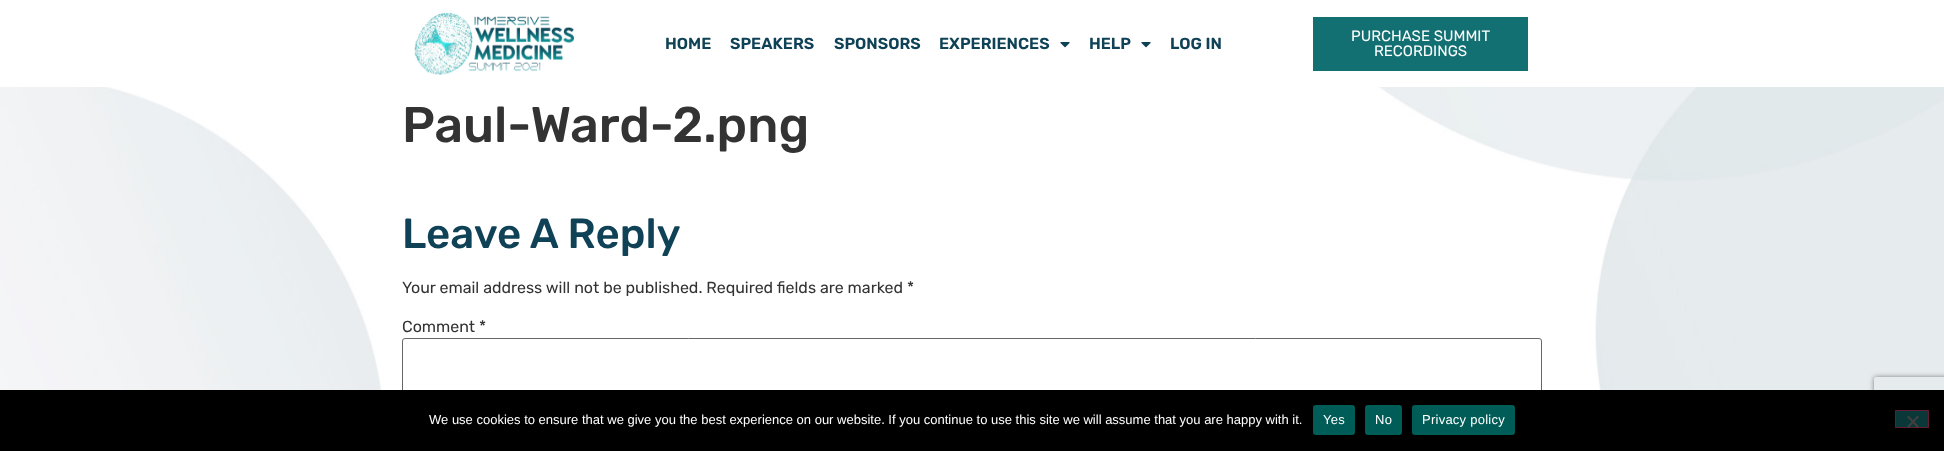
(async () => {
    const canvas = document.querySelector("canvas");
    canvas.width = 1944;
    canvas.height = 451;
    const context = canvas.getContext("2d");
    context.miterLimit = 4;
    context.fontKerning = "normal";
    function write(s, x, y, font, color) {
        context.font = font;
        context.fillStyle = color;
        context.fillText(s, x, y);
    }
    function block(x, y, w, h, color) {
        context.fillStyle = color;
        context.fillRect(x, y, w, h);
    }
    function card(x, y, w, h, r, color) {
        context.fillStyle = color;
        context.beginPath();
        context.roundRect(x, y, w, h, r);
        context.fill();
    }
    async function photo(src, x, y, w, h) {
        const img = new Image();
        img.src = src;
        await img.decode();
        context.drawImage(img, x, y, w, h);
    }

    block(0, 0, 1944, 451, "rgb(255, 255, 255)");
    await photo("media/1.png", 0, 87, 1944, 303);
    await photo("media/2.png", 414, 12, 160, 63);
    write("HOME", 665, 49, "600 16px Rubik", "rgb(15, 66, 86)");
    write("SPEAKERS", 730, 49, "600 16px Rubik", "rgb(15, 66, 86)");
    write("SPONSORS", 834, 49, "600 16px Rubik", "rgb(15, 66, 86)");
    write("EXPERIENCES", 939, 49, "600 16px Rubik", "rgb(15, 66, 86)");
    await photo("media/3.png", 1060, 42, 10, 6);
    write("HELP", 1089, 49, "600 16px Rubik", "rgb(15, 66, 86)");
    await photo("media/3.png", 1141, 42, 10, 6);
    write("LOG IN", 1170, 49, "600 16px Rubik", "rgb(15, 66, 86)");
    block(1313, 17, 215, 54, "rgb(19, 112, 114)");
    write("PURCHASE SUMMIT", 1351, 41, "15px Rubik", "rgb(255, 255, 255)");
    write("RECORDINGS", 1374, 56, "15px Rubik", "rgb(255, 255, 255)");
    write("Paul-Ward-2.png", 402, 142, "500 50px Rubik", "rgb(51, 51, 51)");
    write("Leave A Reply", 402, 248, "500 42px Rubik", "rgb(15, 66, 86)");
    write("Your email address will not be published. Required fields are marked *", 402, 293, "16px Rubik", "rgb(51, 51, 51)");
    write("Comment *", 402, 332, "16px Rubik", "rgb(51, 51, 51)");
    context.beginPath();
    context.roundRect(402.5, 338.5, 1139, 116, 2.5);
    context.strokeStyle = "rgb(102, 102, 102)";
    context.stroke();
    context.save();
    context.beginPath();
    context.moveTo(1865, 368);
    context.lineTo(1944, 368);
    context.lineTo(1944, 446);
    context.lineTo(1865, 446);
    context.closePath();
    context.moveTo(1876, 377);
    context.lineTo(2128, 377);
    context.bezierCurveTo(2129, 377, 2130, 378, 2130, 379);
    context.lineTo(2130, 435);
    context.bezierCurveTo(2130, 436, 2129, 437, 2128, 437);
    context.lineTo(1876, 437);
    context.bezierCurveTo(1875, 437, 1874, 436, 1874, 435);
    context.lineTo(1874, 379);
    context.bezierCurveTo(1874, 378, 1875, 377, 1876, 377);
    context.closePath();
    context.clip("evenodd");
    context.fillStyle = "rgb(128, 128, 128)";
    context.filter = "blur(2.5px)";
    context.beginPath();
    context.roundRect(1874, 377, 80, 60, 2);
    context.fill();
    context.filter = "none";
    context.restore();
    block(0, 390, 1944, 61, "rgb(0, 0, 0)");
    write("We use cookies to ensure that we give you the best experience on our website. If you continue to use this site we will assume that you are happy with it.", 429, 424, "13px Liberation Sans", "rgb(255, 255, 255)");
    card(1313, 405, 42, 30, 3, "rgb(0, 92, 86)");
    context.letterSpacing = "0.25px";
    write("Yes", 1323, 424, "13px Liberation Sans", "rgb(255, 255, 255)");
    card(1365, 405, 37, 30, 3, "rgb(0, 92, 86)");
    write("No", 1375, 424, "13px Liberation Sans", "rgb(255, 255, 255)");
    card(1412, 405, 103, 30, 3, "rgb(0, 92, 86)");
    write("Privacy policy", 1422, 424, "13px Liberation Sans", "rgb(255, 255, 255)");
    context.fillStyle = "rgb(10, 56, 57)";
    context.beginPath();
    context.rect(1895.5, 410.5, 33, 17);
    context.fill();
    context.strokeStyle = "rgb(102, 26, 51)";
    context.stroke();
    context.fillStyle = "rgb(64, 64, 64)";
    context.beginPath();
    context.moveTo(1917.5, 415.5);
    context.lineTo(1919, 417);
    context.lineTo(1908.5, 428);
    context.lineTo(1907, 426.5);
    context.closePath();
    context.fill();
    context.beginPath();
    context.moveTo(1907, 417);
    context.lineTo(1908.5, 415.5);
    context.lineTo(1919, 426.5);
    context.lineTo(1917.5, 428);
    context.closePath();
    context.fill();
})();
